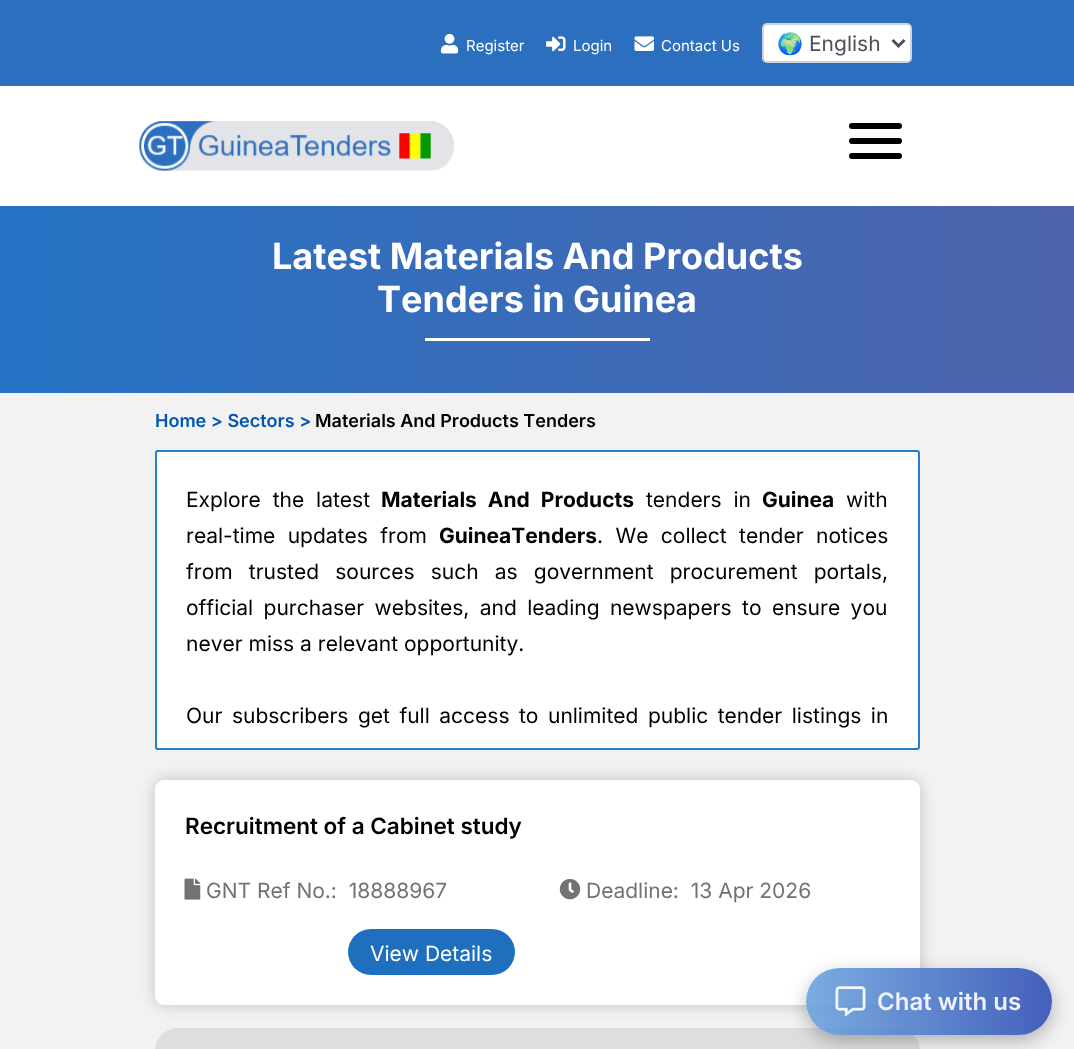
(async () => {
    const canvas = document.querySelector("canvas");
    canvas.width = 1074;
    canvas.height = 1049;
    const context = canvas.getContext("2d");
    context.miterLimit = 4;
    context.fontKerning = "none";
    function write(s, x, y, font, color) {
        context.font = font;
        context.fillStyle = color;
        context.fillText(s, x, y);
    }
    function block(x, y, w, h, color) {
        context.fillStyle = color;
        context.fillRect(x, y, w, h);
    }
    function card(x, y, w, h, r, color) {
        context.fillStyle = color;
        context.beginPath();
        context.roundRect(x, y, w, h, r);
        context.fill();
    }
    async function photo(src, x, y, w, h) {
        const img = new Image();
        img.src = src;
        await img.decode();
        context.drawImage(img, x, y, w, h);
    }
    let gradient;

    block(0, 0, 1074, 1049, "rgb(255, 255, 255)");
    block(0, 0, 1074, 86, "rgb(45, 111, 191)");
    await photo("media/1.png", 441, 33, 18, 21);
    write("Register", 466, 51, "15px Inter", "rgb(255, 255, 255)");
    await photo("media/2.png", 546, 36, 20, 16);
    write("Login", 573, 51, "15px Inter", "rgb(255, 255, 255)");
    await photo("media/3.png", 634, 36, 20, 15);
    write("Contact Us", 661, 51, "15px Inter", "rgb(255, 255, 255)");
    context.beginPath();
    context.roundRect(763, 24, 148, 38, 4);
    context.fill();
    context.strokeStyle = "rgb(206, 212, 218)";
    context.lineWidth = 2;
    context.stroke();
    context.beginPath();
    context.moveTo(892.5, 40);
    context.lineTo(898.5, 46);
    context.lineTo(904.5, 40);
    context.strokeStyle = "rgb(73, 80, 87)";
    context.lineWidth = 3;
    context.stroke();
    context.save();
    context.beginPath();
    context.rect(777, 29, 102, 28);
    context.clip();
    write("🌍", 777, 51, "21px Noto Color Emoji", "rgb(73, 80, 87)");
    context.restore();
    write("English", 809, 51, "21px Inter", "rgb(73, 80, 87)");
    await photo("media/4.png", 139, 121, 315, 50);
    card(849, 153, 53, 6, 3, "rgb(0, 0, 0)");
    card(849, 123, 53, 6, 3, "rgb(0, 0, 0)");
    card(849, 138, 53, 6, 3, "rgb(0, 0, 0)");
    gradient = context.createLinearGradient(0, 299, 1074, 299);
    gradient.addColorStop(0, "rgb(37, 115, 197)");
    gradient.addColorStop(1, "rgb(78, 100, 172)");
    context.fillStyle = gradient;
    context.fillRect(0, 206, 1074, 187);
    write("Latest Materials And Products", 272, 269, "bold 36px Inter", "rgb(255, 255, 255)");
    write("Tenders in Guinea", 377, 312, "bold 36px Inter", "rgb(255, 255, 255)");
    block(425, 338, 225, 3, "rgb(255, 255, 255)");
    block(0, 393, 1074, 656, "rgb(242, 242, 242)");
    write("Home > Sectors >", 155, 427, "600 18px Inter", "rgb(0, 86, 179)");
    write("Materials And Products Tenders", 315, 427, "600 18px Inter", "rgb(0, 0, 0)");
    context.fillStyle = "rgb(255, 255, 255)";
    context.beginPath();
    context.roundRect(156, 451, 763, 298, 2);
    context.fill();
    context.strokeStyle = "rgb(37, 126, 202)";
    context.lineWidth = 2;
    context.stroke();
    context.wordSpacing = "6px";
    write("Explore the latest", 186, 507, "21px Inter", "rgb(0, 0, 0)");
    write("Materials And Products", 381, 507, "bold 21px Inter", "rgb(0, 0, 0)");
    write("tenders in", 646, 507, "21px Inter", "rgb(0, 0, 0)");
    context.wordSpacing = "0px";
    write("Guinea", 762, 507, "bold 21px Inter", "rgb(0, 0, 0)");
    write("with", 846, 507, "21px Inter", "rgb(0, 0, 0)");
    context.wordSpacing = "6.5px";
    write("real-time updates from", 186, 543, "21px Inter", "rgb(0, 0, 0)");
    context.wordSpacing = "0px";
    write("GuineaTenders", 439, 543, "bold 21px Inter", "rgb(0, 0, 0)");
    context.wordSpacing = "6.5px";
    write(". We collect tender notices", 597, 543, "21px Inter", "rgb(0, 0, 0)");
    context.wordSpacing = "10.25px";
    write("from trusted sources such as government procurement portals,", 186, 579, "21px Inter", "rgb(0, 0, 0)");
    context.wordSpacing = "4.5px";
    write("official purchaser websites, and leading newspapers to ensure you", 186, 615, "21px Inter", "rgb(0, 0, 0)");
    context.wordSpacing = "0px";
    write("never miss a relevant opportunity.", 186, 651, "21px Inter", "rgb(0, 0, 0)");
    context.wordSpacing = "3.6px";
    write("Our subscribers get full access to unlimited public tender listings in", 186, 723, "21px Inter", "rgb(0, 0, 0)");
    context.fillStyle = "rgba(0, 0, 0, 0.2)";
    context.filter = "blur(7.5px)";
    context.beginPath();
    context.roundRect(155, 780, 765, 225, 9);
    context.fill();
    context.filter = "none";
    card(155, 780, 765, 225, 9, "rgb(255, 255, 255)");
    context.wordSpacing = "0px";
    write("Recruitment of a Cabinet study", 185, 834, "600 22.5px Inter", "rgb(0, 0, 0)");
    await photo("media/5.png", 184, 878, 17, 22);
    write("GNT Ref No.:  18888967", 206, 898, "21px Inter", "rgb(114, 114, 114)");
    await photo("media/6.png", 559, 879, 22, 21);
    write("Deadline:  13 Apr 2026", 586, 898, "21px Inter", "rgb(114, 114, 114)");
    card(348, 929, 167, 46, 23, "rgb(30, 112, 190)");
    write("View Details", 370, 961, "21px Inter", "rgb(255, 255, 255)");
    context.fillStyle = "rgb(222, 222, 222)";
    context.beginPath();
    context.moveTo(178, 1028);
    context.lineTo(897, 1028);
    context.bezierCurveTo(909.5, 1028, 920, 1038.5, 920, 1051);
    context.lineTo(920, 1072);
    context.lineTo(155, 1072);
    context.lineTo(155, 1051);
    context.bezierCurveTo(155, 1038.5, 165.5, 1028, 178, 1028);
    context.closePath();
    context.fill();
    context.save();
    context.beginPath();
    context.moveTo(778, 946);
    context.lineTo(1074, 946);
    context.lineTo(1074, 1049);
    context.lineTo(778, 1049);
    context.closePath();
    context.moveTo(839.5, 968);
    context.lineTo(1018.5, 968);
    context.bezierCurveTo(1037, 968, 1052, 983, 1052, 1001.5);
    context.bezierCurveTo(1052, 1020, 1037, 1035, 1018.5, 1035);
    context.lineTo(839.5, 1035);
    context.bezierCurveTo(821, 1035, 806, 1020, 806, 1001.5);
    context.bezierCurveTo(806, 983, 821, 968, 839.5, 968);
    context.closePath();
    context.clip("evenodd");
    context.fillStyle = "rgba(0, 0, 0, 0.27)";
    context.filter = "blur(9px)";
    context.beginPath();
    context.roundRect(806, 974, 246, 67, 33.5);
    context.fill();
    context.filter = "none";
    context.restore();
    gradient = context.createLinearGradient(806, 1001, 1052, 1001);
    gradient.addColorStop(0, "rgba(104, 161, 221, 0.88)");
    gradient.addColorStop(1, "rgba(49, 80, 181, 0.9)");
    context.fillStyle = gradient;
    context.beginPath();
    context.roundRect(806, 968, 246, 67, 33.5);
    context.fill();
    await photo("media/7.png", 835, 986, 31, 31);
    write("Chat with us", 877, 1010, "600 24px Inter", "rgb(239, 242, 250)");
})();
